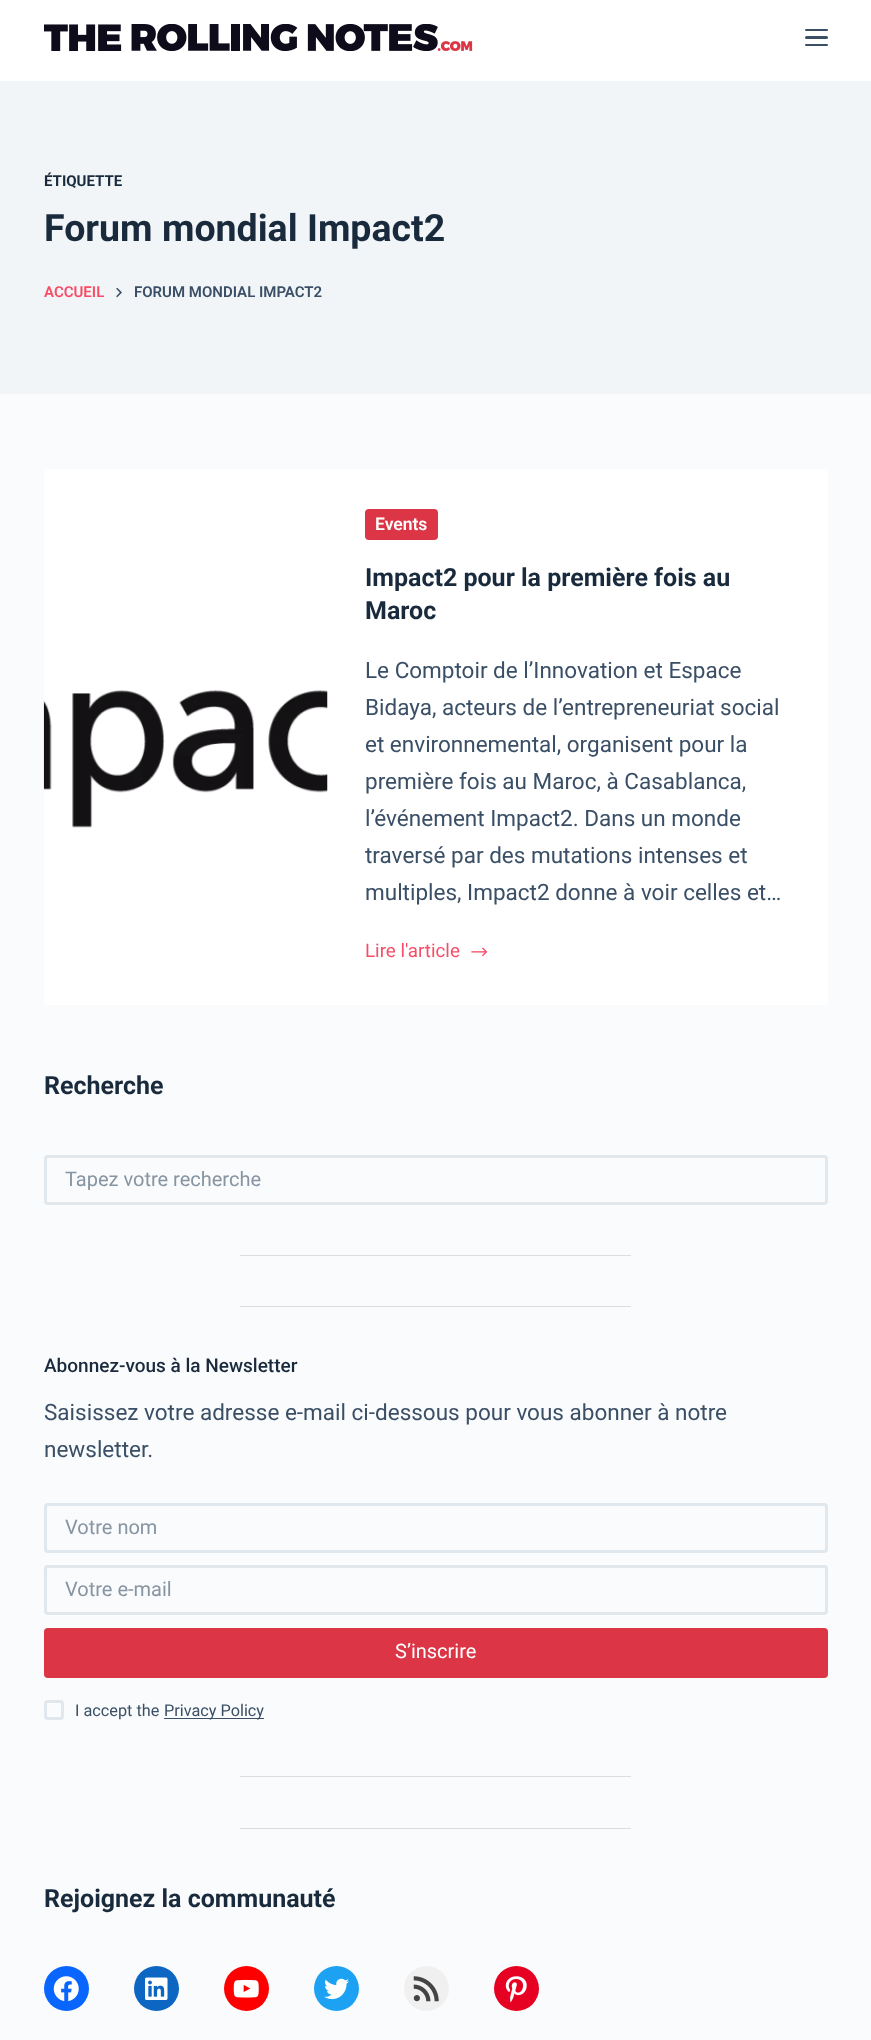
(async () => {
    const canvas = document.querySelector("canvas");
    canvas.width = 871;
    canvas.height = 2040;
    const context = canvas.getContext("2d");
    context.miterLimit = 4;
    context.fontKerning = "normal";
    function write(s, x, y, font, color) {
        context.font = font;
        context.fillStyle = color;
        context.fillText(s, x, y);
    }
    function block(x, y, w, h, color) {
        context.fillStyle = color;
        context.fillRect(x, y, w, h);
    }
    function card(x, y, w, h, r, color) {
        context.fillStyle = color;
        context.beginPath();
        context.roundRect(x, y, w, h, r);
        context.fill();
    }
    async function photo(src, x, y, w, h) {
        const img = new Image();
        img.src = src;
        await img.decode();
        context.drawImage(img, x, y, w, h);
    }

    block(0, 0, 871, 2040, "rgb(250, 251, 252)");
    block(0, 0, 871, 81, "rgb(255, 255, 255)");
    await photo("media/1.png", 44, 24, 429, 27);
    card(805, 29, 23, 2, 1, "rgb(58, 79, 102)");
    card(805, 36, 23, 3, 1.5, "rgb(58, 79, 102)");
    card(805, 44, 23, 2, 1, "rgb(58, 79, 102)");
    block(0, 81, 871, 313, "rgb(242, 245, 247)");
    write("ÉTIQUETTE", 44, 186, "bold 15px Roboto", "rgb(25, 42, 61)");
    write("Forum mondial Impact2", 44, 241, "bold 37.5px Roboto", "rgb(25, 42, 61)");
    write("ACCUEIL", 44, 297, "600 15px Roboto", "rgb(247, 77, 103)");
    await photo("media/2.png", 116, 288, 6, 10);
    write("FORUM MONDIAL IMPACT2", 134, 297, "600 15px Roboto", "rgb(58, 79, 102)");
    block(44, 469, 784, 536, "rgb(255, 255, 255)");
    await photo("media/3.png", 43, 690, 285, 138);
    card(365, 509, 73, 31, 4, "rgb(220, 53, 69)");
    write("Events", 375, 530, "600 17.5px Roboto", "rgb(255, 255, 255)");
    write("Impact2 pour la première fois au", 365, 586, "bold 25px Roboto", "rgb(25, 42, 61)");
    write("Maroc", 365, 619, "bold 25px Roboto", "rgb(25, 42, 61)");
    write("Le Comptoir de l’Innovation et Espace", 365, 678, "22.5px Roboto", "rgb(58, 79, 102)");
    write("Bidaya, acteurs de l’entrepreneuriat social", 365, 715, "22.5px Roboto", "rgb(58, 79, 102)");
    write("et environnemental, organisent pour la", 365, 752, "22.5px Roboto", "rgb(58, 79, 102)");
    write("première fois au Maroc, à Casablanca,", 365, 789, "22.5px Roboto", "rgb(58, 79, 102)");
    write("l’événement Impact2. Dans un monde", 365, 826, "22.5px Roboto", "rgb(58, 79, 102)");
    write("traversé par des mutations intenses et", 365, 863, "22.5px Roboto", "rgb(58, 79, 102)");
    write("multiples, Impact2 donne à voir celles et…", 365, 900, "22.5px Roboto", "rgb(58, 79, 102)");
    write("Lire l'article", 365, 957, "18.75px Roboto", "rgb(247, 77, 103)");
    await photo("media/4.png", 471, 947, 17, 10);
    write("Recherche", 44, 1094, "bold 25px Roboto", "rgb(25, 42, 61)");
    context.beginPath();
    context.roundRect(45.5, 1156.5, 781, 47, 2.5);
    context.strokeStyle = "rgb(225, 232, 237)";
    context.lineWidth = 3;
    context.stroke();
    write("Tapez votre recherche", 65, 1186, "20px Roboto", "rgb(135, 148, 162)");
    block(240, 1255, 391, 1, "rgb(221, 221, 221)");
    block(240, 1306, 391, 1, "rgb(221, 221, 221)");
    write("Abonnez-vous à la Newsletter", 44, 1372, "500 19px Roboto", "rgb(25, 42, 61)");
    write("Saisissez votre adresse e-mail ci-dessous pour vous abonner à notre", 44, 1420, "22.5px Roboto", "rgb(58, 79, 102)");
    write("newsletter.", 44, 1457, "22.5px Roboto", "rgb(58, 79, 102)");
    context.beginPath();
    context.roundRect(45.5, 1504.5, 781, 47, 2.5);
    context.stroke();
    write("Votre nom", 65, 1534, "20px Roboto", "rgb(135, 148, 162)");
    context.beginPath();
    context.roundRect(45.5, 1566.5, 781, 47, 2.5);
    context.stroke();
    write("Votre e-mail", 65, 1596, "20px Roboto", "rgb(135, 148, 162)");
    card(44, 1628, 784, 50, 4, "rgb(220, 53, 69)");
    write("S’inscrire", 395, 1658, "20px Roboto", "rgb(255, 255, 255)");
    context.beginPath();
    context.roundRect(45.5, 1701.5, 17, 17, 2.5);
    context.stroke();
    write("I accept the", 75, 1716, "16.25px Roboto", "rgb(58, 79, 102)");
    block(164, 1718, 100, 1, "rgb(58, 79, 102)");
    write("Privacy Policy", 164, 1716, "16.25px Roboto", "rgb(58, 79, 102)");
    block(240, 1776, 391, 1, "rgb(221, 221, 221)");
    block(240, 1828, 391, 1, "rgb(221, 221, 221)");
    write("Rejoignez la communauté", 44, 1907, "bold 25px Roboto", "rgb(25, 42, 61)");
    context.fillStyle = "rgb(8, 102, 255)";
    context.beginPath();
    context.arc(66.5, 1988.5, 22.5, 0, Math.PI * 2);
    context.fill();
    await photo("media/5.png", 53, 1976, 26, 26);
    context.fillStyle = "rgb(13, 102, 194)";
    context.beginPath();
    context.arc(156.5, 1988.5, 22.5, 0, Math.PI * 2);
    context.fill();
    await photo("media/6.png", 145, 1977, 23, 23);
    context.fillStyle = "rgb(255, 0, 0)";
    context.beginPath();
    context.arc(246.5, 1988.5, 22.5, 0, Math.PI * 2);
    context.fill();
    await photo("media/7.png", 233, 1979, 26, 19);
    context.fillStyle = "rgb(29, 161, 242)";
    context.beginPath();
    context.arc(336.5, 1988.5, 22.5, 0, Math.PI * 2);
    context.fill();
    await photo("media/8.png", 324, 1978, 25, 22);
    context.fillStyle = "rgb(240, 240, 240)";
    context.beginPath();
    context.arc(426.5, 1988.5, 22.5, 0, Math.PI * 2);
    context.fill();
    await photo("media/9.png", 413, 1976, 26, 26);
    context.fillStyle = "rgb(230, 1, 34)";
    context.beginPath();
    context.arc(516.5, 1988.5, 22.5, 0, Math.PI * 2);
    context.fill();
    await photo("media/10.png", 505, 1976, 22, 27);
})();
